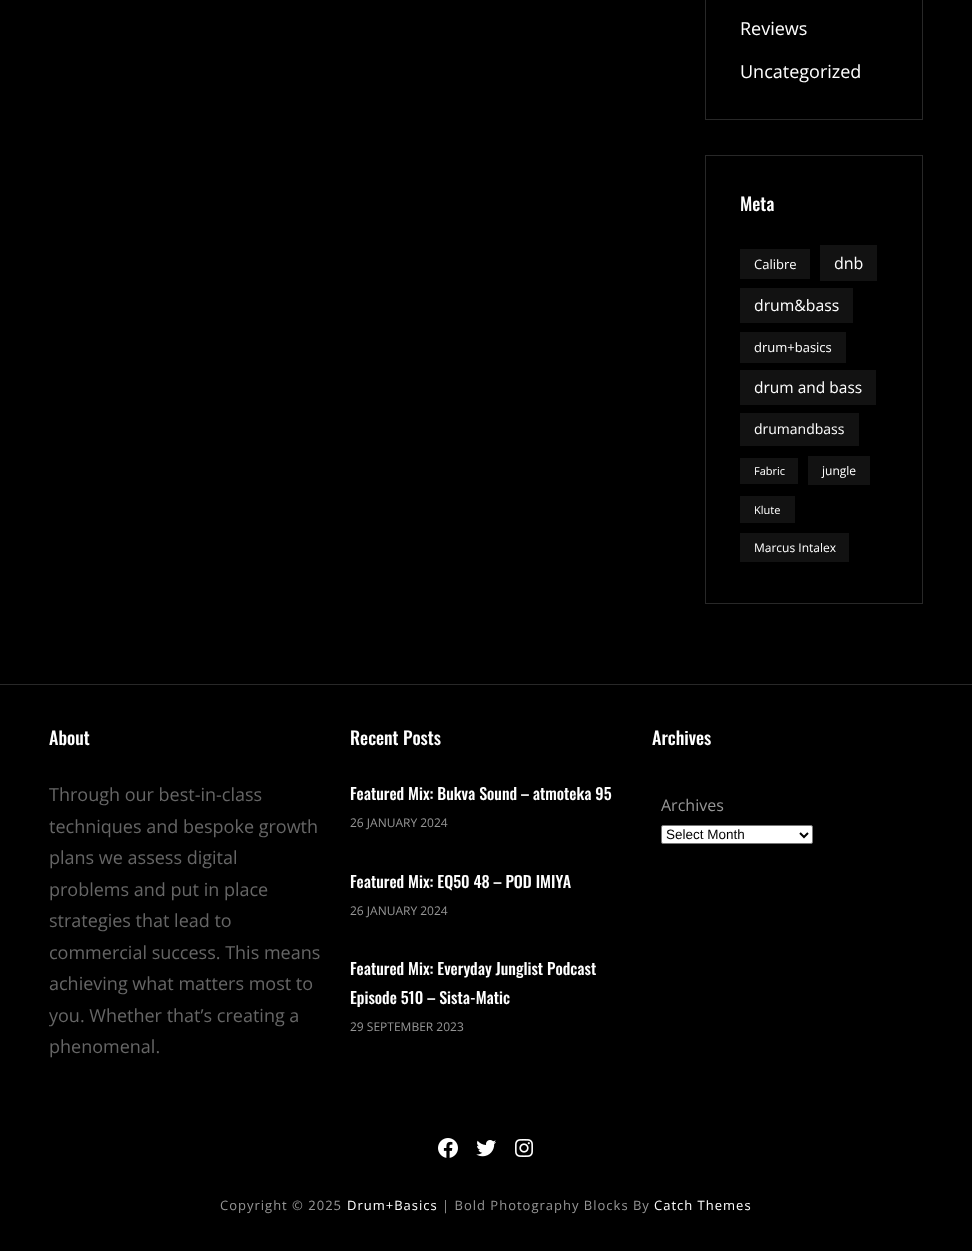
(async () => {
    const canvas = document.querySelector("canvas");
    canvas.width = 972;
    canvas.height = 1251;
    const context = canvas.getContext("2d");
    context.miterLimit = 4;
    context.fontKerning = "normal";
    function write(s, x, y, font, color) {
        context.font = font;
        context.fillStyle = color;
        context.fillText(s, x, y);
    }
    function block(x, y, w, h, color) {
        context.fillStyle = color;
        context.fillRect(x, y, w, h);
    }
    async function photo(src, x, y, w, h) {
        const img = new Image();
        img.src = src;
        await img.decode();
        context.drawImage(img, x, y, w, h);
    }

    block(0, 0, 972, 1251, "rgb(0, 0, 0)");
    context.strokeStyle = "rgb(40, 40, 40)";
    context.strokeRect(705.5, -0.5, 217, 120);
    write("Reviews", 740, 35, "18px Open Sans", "rgb(255, 255, 255)");
    write("Uncategorized", 740, 78, "18px Open Sans", "rgb(255, 255, 255)");
    context.strokeRect(705.5, 155.5, 217, 448);
    write("Meta", 740, 211, "500 18px Oswald", "rgb(255, 255, 255)");
    block(740, 249, 70, 30, "rgb(18, 18, 18)");
    write("Calibre", 754, 269, "13px Open Sans", "rgb(255, 255, 255)");
    block(820, 245, 57, 36, "rgb(18, 18, 18)");
    write("dnb", 834, 269, "16px Open Sans", "rgb(255, 255, 255)");
    block(740, 288, 113, 35, "rgb(18, 18, 18)");
    write("drum&bass", 754, 311, "15.75px Open Sans", "rgb(255, 255, 255)");
    block(740, 332, 106, 31, "rgb(18, 18, 18)");
    write("drum+basics", 754, 352, "13px Open Sans", "rgb(255, 255, 255)");
    block(740, 370, 136, 35, "rgb(18, 18, 18)");
    write("drum and bass", 754, 393, "15.5px Open Sans", "rgb(255, 255, 255)");
    block(740, 413, 119, 33, "rgb(18, 18, 18)");
    write("drumandbass", 754, 434, "14px Open Sans", "rgb(255, 255, 255)");
    block(740, 458, 58, 26, "rgb(18, 18, 18)");
    write("Fabric", 754, 475, "11px Open Sans", "rgb(255, 255, 255)");
    block(808, 456, 62, 29, "rgb(18, 18, 18)");
    write("jungle", 822, 475, "12px Open Sans", "rgb(255, 255, 255)");
    block(740, 496, 55, 27, "rgb(18, 18, 18)");
    write("Klute", 754, 514, "11px Open Sans", "rgb(255, 255, 255)");
    block(740, 533, 109, 29, "rgb(18, 18, 18)");
    write("Marcus Intalex", 754, 552, "12px Open Sans", "rgb(255, 255, 255)");
    block(0, 684, 972, 1, "rgb(40, 40, 40)");
    write("About", 49, 745, "500 18px Oswald", "rgb(255, 255, 255)");
    write("Through our best-in-class", 49, 801, "18px Open Sans", "rgb(102, 102, 102)");
    write("techniques and bespoke growth", 49, 833, "18px Open Sans", "rgb(102, 102, 102)");
    write("plans we assess digital", 49, 864, "18px Open Sans", "rgb(102, 102, 102)");
    write("problems and put in place", 49, 896, "18px Open Sans", "rgb(102, 102, 102)");
    write("strategies that lead to", 49, 927, "18px Open Sans", "rgb(102, 102, 102)");
    write("commercial success. This means", 49, 959, "18px Open Sans", "rgb(102, 102, 102)");
    write("achieving what matters most to", 49, 990, "18px Open Sans", "rgb(102, 102, 102)");
    write("you. Whether that’s creating a", 49, 1022, "18px Open Sans", "rgb(102, 102, 102)");
    write("phenomenal.", 49, 1053, "18px Open Sans", "rgb(102, 102, 102)");
    write("Recent Posts", 350, 745, "500 18px Oswald", "rgb(255, 255, 255)");
    write("Featured Mix: Bukva Sound – atmoteka 95", 350, 800, "500 16px Oswald", "rgb(255, 255, 255)");
    write("26 JANUARY 2024", 350, 827, "12px Open Sans", "rgb(150, 150, 150)");
    write("Featured Mix: EQ50 48 – POD IMIYA", 350, 888, "500 16px Oswald", "rgb(255, 255, 255)");
    write("26 JANUARY 2024", 350, 915, "12px Open Sans", "rgb(150, 150, 150)");
    write("Featured Mix: Everyday Junglist Podcast", 350, 975, "500 16px Oswald", "rgb(255, 255, 255)");
    write("Episode 510 – Sista-Matic", 350, 1004, "500 16px Oswald", "rgb(255, 255, 255)");
    write("29 SEPTEMBER 2023", 350, 1031, "12px Open Sans", "rgb(150, 150, 150)");
    write("Archives", 652, 745, "500 18px Oswald", "rgb(255, 255, 255)");
    write("Archives", 661, 811, "16px Open Sans", "rgb(150, 150, 150)");
    context.fillStyle = "rgb(255, 255, 255)";
    context.beginPath();
    context.roundRect(661.5, 825.5, 151, 18, 1.5);
    context.fill();
    context.strokeStyle = "rgb(118, 118, 118)";
    context.stroke();
    context.beginPath();
    context.moveTo(800, 833);
    context.lineTo(804, 837);
    context.lineTo(808, 833);
    context.strokeStyle = "rgb(0, 0, 0)";
    context.lineWidth = 2;
    context.stroke();
    write("Select Month", 666, 839, "13.5px Liberation Sans", "rgb(0, 0, 0)");
    await photo("media/1.png", 438, 1138, 20, 20);
    await photo("media/2.png", 476, 1140, 20, 17);
    await photo("media/3.png", 515, 1139, 18, 18);
    context.letterSpacing = "1px";
    write("Copyright © 2025", 220, 1210, "13px Open Sans", "rgb(150, 150, 150)");
    write("Drum+Basics", 347, 1210, "13px Open Sans", "rgb(255, 255, 255)");
    write("| Bold Photography Blocks By", 442, 1210, "13px Open Sans", "rgb(150, 150, 150)");
    write("Catch Themes", 654, 1210, "13px Open Sans", "rgb(255, 255, 255)");
})();
